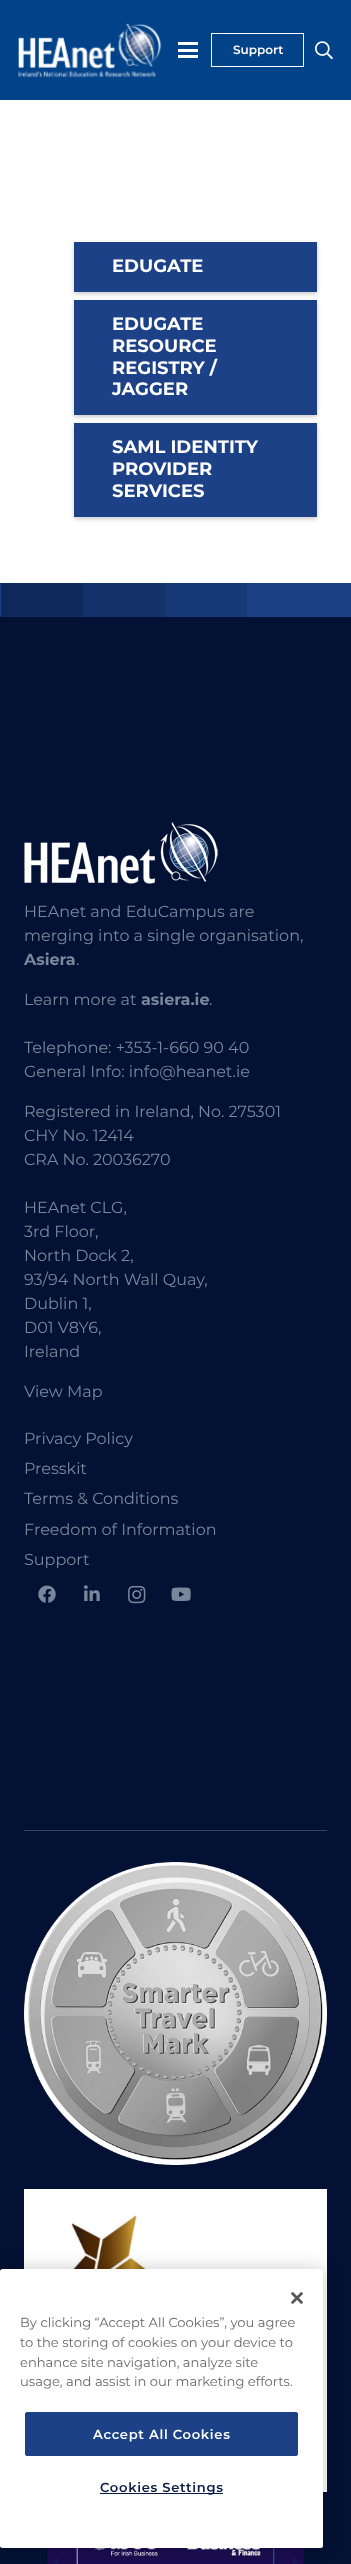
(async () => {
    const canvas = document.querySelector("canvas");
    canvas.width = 351;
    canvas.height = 2564;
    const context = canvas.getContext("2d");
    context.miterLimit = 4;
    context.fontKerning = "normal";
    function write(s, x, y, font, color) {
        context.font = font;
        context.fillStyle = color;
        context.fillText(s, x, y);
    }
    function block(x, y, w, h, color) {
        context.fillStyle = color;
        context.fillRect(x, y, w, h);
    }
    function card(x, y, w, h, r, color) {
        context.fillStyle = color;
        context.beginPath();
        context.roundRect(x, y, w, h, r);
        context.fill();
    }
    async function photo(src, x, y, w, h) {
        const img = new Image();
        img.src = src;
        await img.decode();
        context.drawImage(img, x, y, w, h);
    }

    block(0, 0, 351, 2564, "rgb(255, 255, 255)");
    block(0, 0, 351, 100, "rgb(1, 66, 137)");
    await photo("media/1.png", 18, 23, 144, 55);
    block(178, 49, 20, 3, "rgb(255, 255, 255)");
    block(178, 42, 20, 3, "rgb(255, 255, 255)");
    block(178, 55, 20, 3, "rgb(255, 255, 255)");
    context.strokeStyle = "rgb(255, 255, 255)";
    context.strokeRect(211.5, 33.5, 92, 33);
    write("Support", 233, 54, "600 12px Montserrat", "rgb(255, 255, 255)");
    await photo("media/2.png", 315, 41, 18, 19);
    context.fillStyle = "rgba(0, 0, 0, 0.2)";
    context.filter = "blur(2px)";
    context.beginPath();
    context.rect(74, 244, 243, 50);
    context.fill();
    context.filter = "none";
    block(74, 242, 243, 50, "rgb(28, 65, 134)");
    write("EDUGATE", 112, 272, "bold 18px Montserrat", "rgb(255, 255, 255)");
    context.fillStyle = "rgba(0, 0, 0, 0.2)";
    context.filter = "blur(2px)";
    context.beginPath();
    context.rect(74, 302, 243, 115);
    context.fill();
    context.filter = "none";
    block(74, 300, 243, 115, "rgb(28, 65, 134)");
    write("EDUGATE", 112, 330, "bold 18px Montserrat", "rgb(255, 255, 255)");
    write("RESOURCE", 112, 352, "bold 18px Montserrat", "rgb(255, 255, 255)");
    write("REGISTRY /", 112, 374, "bold 18px Montserrat", "rgb(255, 255, 255)");
    write("JAGGER", 112, 395, "bold 18px Montserrat", "rgb(255, 255, 255)");
    context.fillStyle = "rgba(0, 0, 0, 0.2)";
    context.filter = "blur(2px)";
    context.beginPath();
    context.rect(74, 425, 243, 94);
    context.fill();
    context.filter = "none";
    block(74, 423, 243, 94, "rgb(28, 65, 134)");
    write("SAML IDENTITY", 112, 453, "bold 18px Montserrat", "rgb(255, 255, 255)");
    write("PROVIDER", 112, 475, "bold 18px Montserrat", "rgb(255, 255, 255)");
    write("SERVICES", 112, 497, "bold 18px Montserrat", "rgb(255, 255, 255)");
    block(0, 583, 351, 34, "rgb(28, 65, 134)");
    await photo("media/3.png", 1, 583, 246, 34);
    block(0, 617, 351, 1947, "rgb(3, 17, 52)");
    await photo("media/4.png", 24, 822, 194, 62);
    write("HEAnet and EduCampus are", 24, 917, "16px Montserrat", "rgb(121, 135, 154)");
    write("merging into a single organisation,", 24, 941, "16px Montserrat", "rgb(121, 135, 154)");
    write("Asiera", 24, 965, "bold 16px Montserrat", "rgb(121, 135, 154)");
    write(".", 76, 965, "16px Montserrat", "rgb(121, 135, 154)");
    write("Learn more at", 24, 1005, "16px Montserrat", "rgb(121, 135, 154)");
    write("asiera.ie", 141, 1005, "bold 16px Montserrat", "rgb(121, 135, 154)");
    write(".", 209, 1005, "16px Montserrat", "rgb(121, 135, 154)");
    write("Telephone: +353-1-660 90 40", 24, 1053, "16px Montserrat", "rgb(121, 135, 154)");
    write("General Info: info@heanet.ie", 24, 1077, "16px Montserrat", "rgb(121, 135, 154)");
    write("Registered in Ireland, No. 275301", 24, 1117, "16px Montserrat", "rgb(121, 135, 154)");
    write("CHY No. 12414", 24, 1141, "16px Montserrat", "rgb(121, 135, 154)");
    write("CRA No. 20036270", 24, 1165, "16px Montserrat", "rgb(121, 135, 154)");
    write("HEAnet CLG,", 24, 1213, "16px Montserrat", "rgb(121, 135, 154)");
    write("3rd Floor,", 24, 1237, "16px Montserrat", "rgb(121, 135, 154)");
    write("North Dock 2,", 24, 1261, "16px Montserrat", "rgb(121, 135, 154)");
    write("93/94 North Wall Quay,", 24, 1285, "16px Montserrat", "rgb(121, 135, 154)");
    write("Dublin 1,", 24, 1309, "16px Montserrat", "rgb(121, 135, 154)");
    write("D01 V8Y6,", 24, 1333, "16px Montserrat", "rgb(121, 135, 154)");
    write("Ireland", 24, 1357, "16px Montserrat", "rgb(121, 135, 154)");
    write("View Map", 24, 1397, "16px Montserrat", "rgb(121, 135, 154)");
    write("Privacy Policy", 24, 1444, "16px Montserrat", "rgb(121, 135, 154)");
    write("Presskit", 24, 1474, "16px Montserrat", "rgb(121, 135, 154)");
    write("Terms & Conditions", 24, 1504, "16px Montserrat", "rgb(121, 135, 154)");
    write("Freedom of Information", 24, 1535, "16px Montserrat", "rgb(121, 135, 154)");
    write("Support", 24, 1565, "16px Montserrat", "rgb(121, 135, 154)");
    await photo("media/5.png", 38, 1585, 18, 18);
    await photo("media/6.png", 84, 1585, 16, 16);
    await photo("media/7.png", 128, 1585, 18, 19);
    await photo("media/8.png", 171, 1587, 20, 14);
    block(24, 1830, 303, 1, "rgb(53, 70, 91)");
    await photo("media/9.png", 24, 1862, 303, 303);
    await photo("media/10.png", 24, 2189, 303, 303);
    await photo("media/11.png", 47, 2548, 257, 16);
    context.fillStyle = "rgba(0, 0, 0, 0.2)";
    context.filter = "blur(9px)";
    context.beginPath();
    context.roundRect(0, 2269, 323, 279, 2.5);
    context.fill();
    context.filter = "none";
    card(0, 2269, 323, 279, 2.5, "rgb(255, 255, 255)");
    await photo("media/12.png", 291, 2292, 12, 12);
    write("By clicking “Accept All Cookies”, you agree", 20, 2327, "13.1px Montserrat", "rgb(105, 105, 105)");
    write("to the storing of cookies on your device to", 20, 2347, "13.1px Montserrat", "rgb(105, 105, 105)");
    write("enhance site navigation, analyze site", 20, 2367, "13.1px Montserrat", "rgb(105, 105, 105)");
    write("usage, and assist in our marketing efforts.", 20, 2386, "13.1px Montserrat", "rgb(105, 105, 105)");
    context.fillStyle = "rgb(28, 65, 134)";
    context.beginPath();
    context.roundRect(25.5, 2412.5, 272, 43, 1.5);
    context.fill();
    context.strokeStyle = "rgb(28, 65, 134)";
    context.stroke();
    context.letterSpacing = "0.7px";
    write("Accept All Cookies", 93, 2439, "600 13.1px Montserrat", "rgb(255, 255, 255)");
    block(100, 2493, 123, 1, "rgb(8, 27, 68)");
    write("Cookies Settings", 100, 2492, "600 13.1px Montserrat", "rgb(8, 27, 68)");
})();
